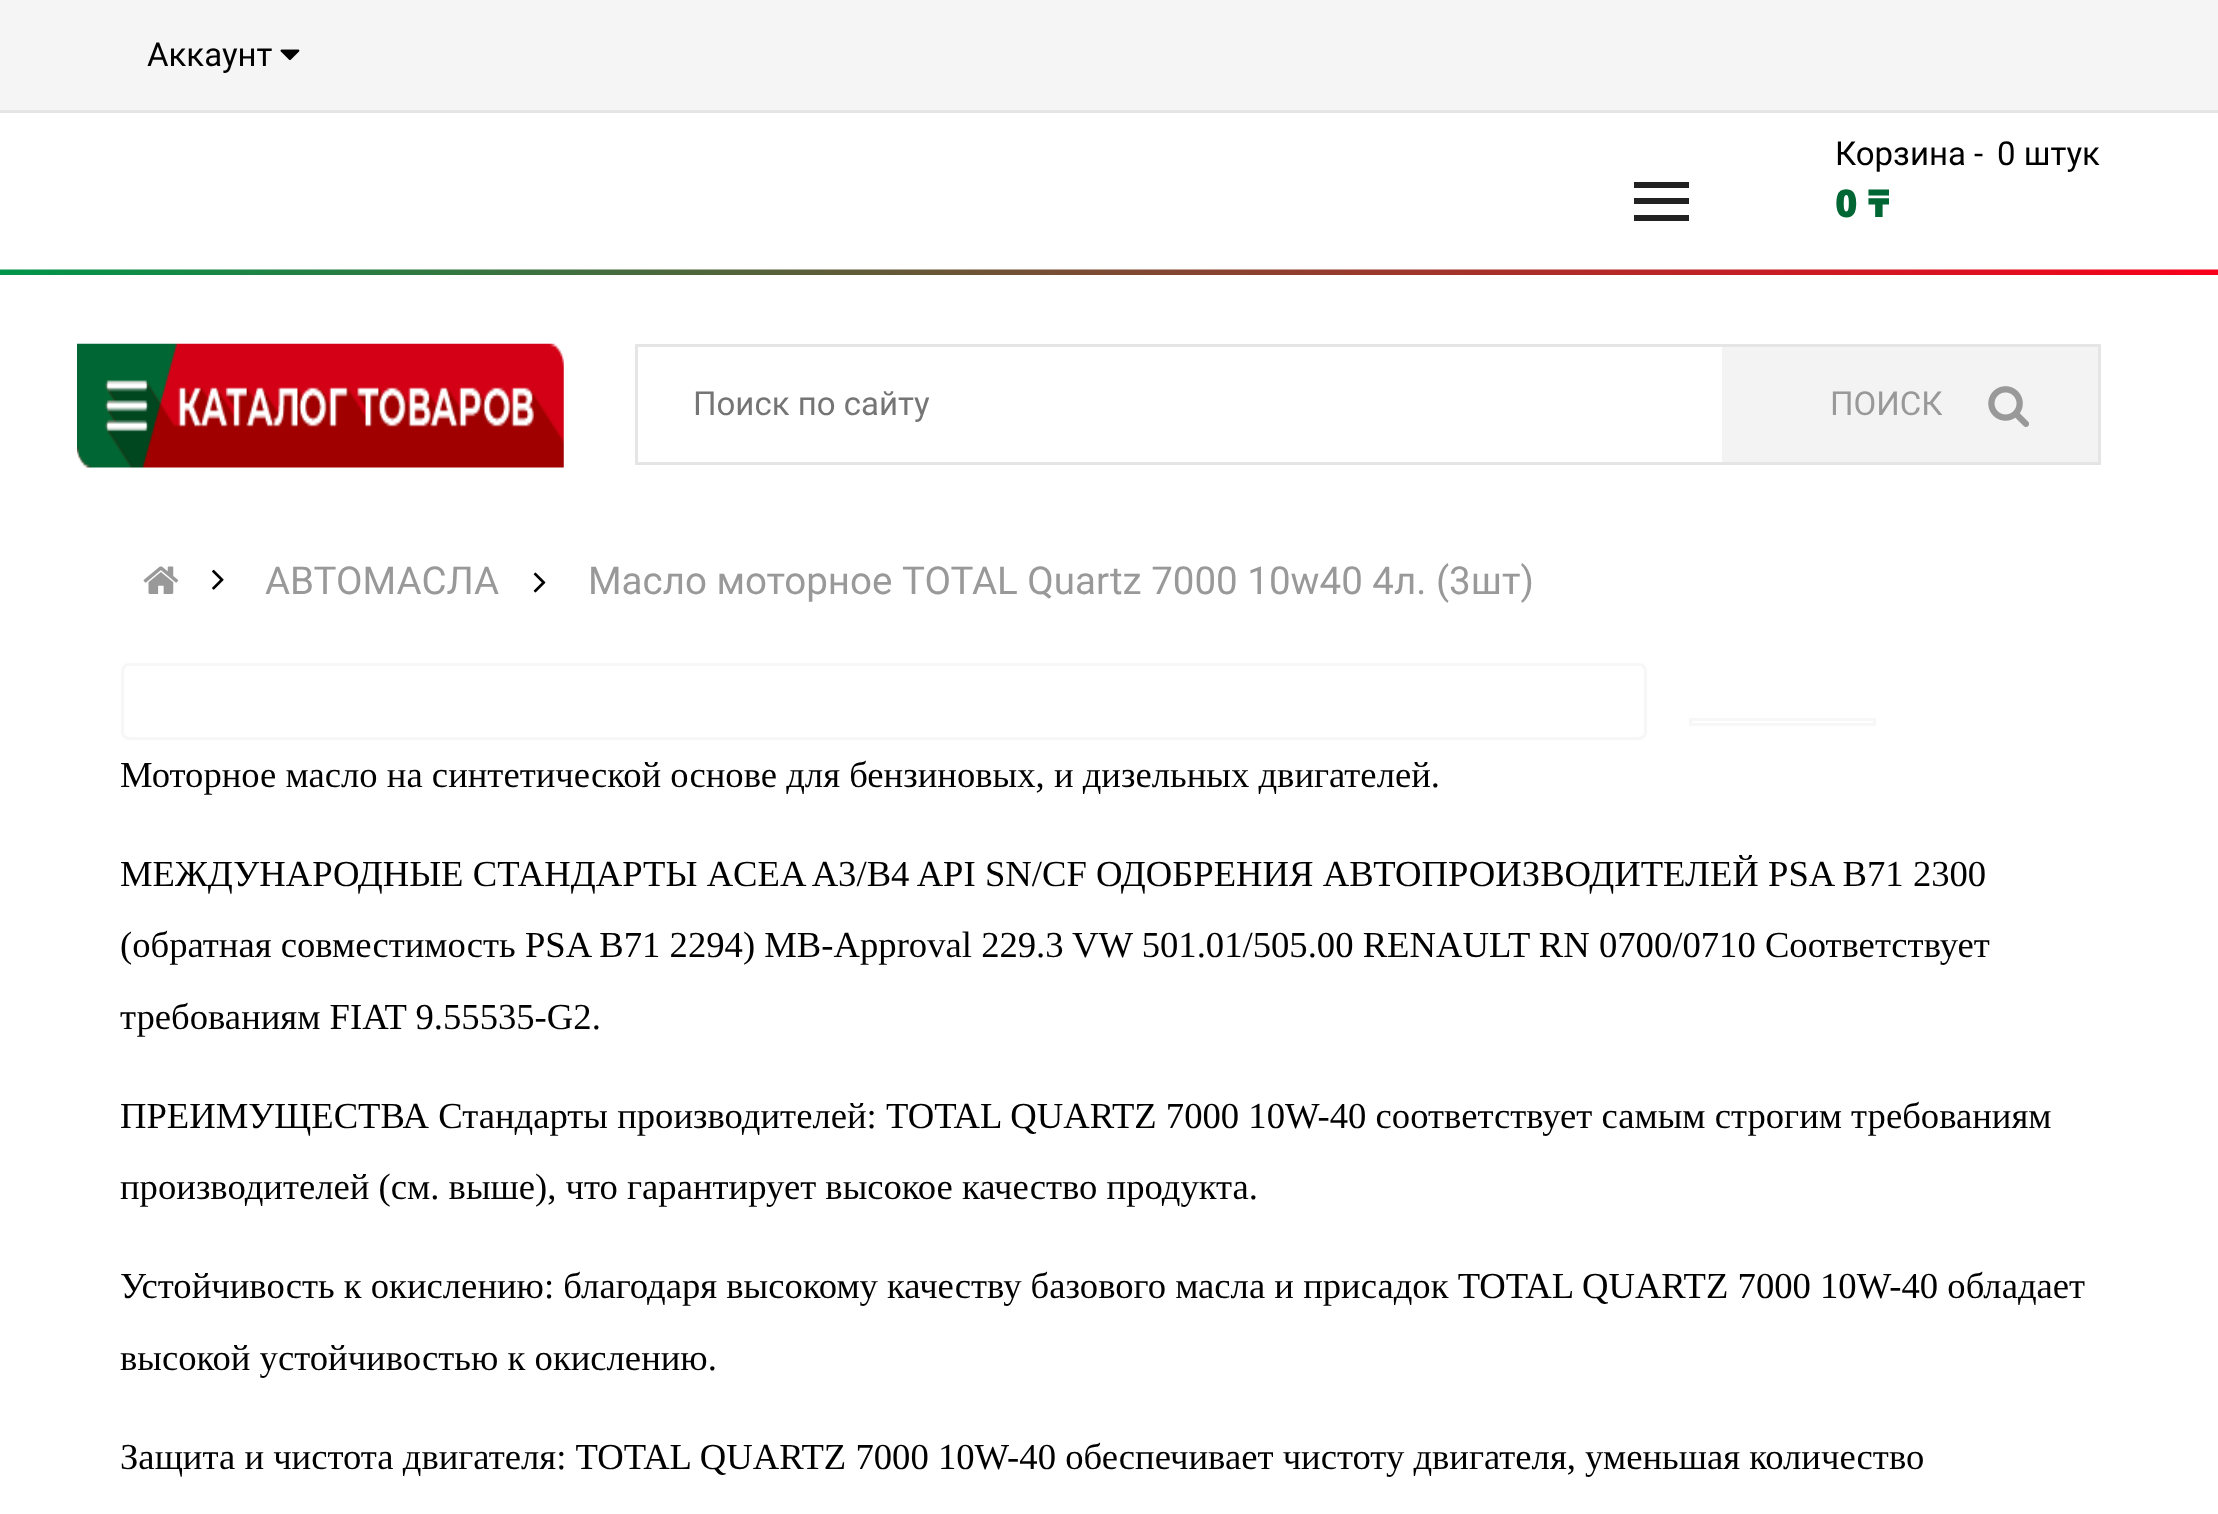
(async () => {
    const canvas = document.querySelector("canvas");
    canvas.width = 2218;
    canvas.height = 1514;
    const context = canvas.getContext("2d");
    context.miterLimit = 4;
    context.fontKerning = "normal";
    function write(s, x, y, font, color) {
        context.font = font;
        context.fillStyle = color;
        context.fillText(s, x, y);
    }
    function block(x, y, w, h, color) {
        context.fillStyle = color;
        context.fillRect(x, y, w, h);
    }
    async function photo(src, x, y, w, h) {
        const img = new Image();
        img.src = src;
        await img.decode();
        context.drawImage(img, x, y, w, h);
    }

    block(0, 0, 2218, 1514, "rgb(255, 255, 255)");
    block(0, 0, 2218, 110, "rgb(245, 245, 245)");
    block(0, 110, 2218, 3, "rgb(229, 229, 229)");
    write("Аккаунт", 147, 66, "33px Roboto", "rgb(0, 0, 0)");
    await photo("media/1.png", 280, 49, 20, 12);
    await photo("media/2.png", 0, 269, 2218, 6);
    block(1634, 182, 55, 6, "rgb(34, 34, 34)");
    block(1634, 198, 55, 6, "rgb(34, 34, 34)");
    block(1634, 215, 55, 6, "rgb(34, 34, 34)");
    write("0 штук", 1997, 165, "33px Roboto", "rgb(0, 0, 0)");
    context.save();
    context.beginPath();
    context.rect(1834, 176, 55, 55);
    context.clip();
    write("0 ₸", 1835, 217, "900 38.5px Noto Sans", "rgb(0, 102, 51)");
    context.restore();
    write("Корзина -", 1835, 165, "33px Roboto", "rgb(0, 0, 0)");
    await photo("media/3.png", 77, 343, 487, 125);
    context.strokeStyle = "rgb(229, 229, 229)";
    context.lineWidth = 3;
    context.strokeRect(636.5, 345.5, 1463, 118);
    write("Поиск по сайту", 693, 415, "33px Roboto", "rgb(117, 117, 117)");
    block(1722, 347, 376, 115, "rgb(243, 243, 243)");
    write("ПОИСК", 1830, 415, "33px Roboto", "rgb(153, 153, 153)");
    await photo("media/4.png", 1988, 386, 41, 41);
    await photo("media/5.png", 143, 566, 36, 28);
    await photo("media/6.png", 212, 569, 12, 21);
    write("АВТОМАСЛА", 265, 594, "38.5px Roboto", "rgb(153, 153, 153)");
    await photo("media/7.png", 533, 572, 13, 21);
    write("Масло моторное TOTAL Quartz 7000 10w40 4л. (3шт)", 588, 594, "38.5px Roboto", "rgb(153, 153, 153)");
    context.beginPath();
    context.roundRect(122.5, 664.5, 1523, 74, 6.5);
    context.strokeStyle = "rgb(247, 247, 247)";
    context.stroke();
    context.strokeRect(1690.5, 719.5, 184, 5);
    write("Моторное масло на синтетической основе для бензиновых, и дизельных двигателей.", 120, 787, "36.67px Liberation Serif", "rgb(0, 0, 0)");
    context.wordSpacing = "0.1px";
    write("МЕЖДУНАРОДНЫЕ СТАНДАРТЫ ACEA A3/B4 API SN/CF ОДОБРЕНИЯ АВТОПРОИЗВОДИТЕЛЕЙ PSA B71 2300", 120, 886, "36.67px Liberation Serif", "rgb(0, 0, 0)");
    context.wordSpacing = "0px";
    write("(обратная совместимость PSA B71 2294) MB-Approval 229.3 VW 501.01/505.00 RENAULT RN 0700/0710 Соответствует", 120, 957, "36.67px Liberation Serif", "rgb(0, 0, 0)");
    write("требованиям FIAT 9.55535-G2.", 120, 1029, "36.67px Liberation Serif", "rgb(0, 0, 0)");
    write("ПРЕИМУЩЕСТВА Стандарты производителей: TOTAL QUARTZ 7000 10W-40 соответствует самым строгим требованиям", 120, 1128, "36.67px Liberation Serif", "rgb(0, 0, 0)");
    write("производителей (см. выше), что гарантирует высокое качество продукта.", 120, 1199, "36.67px Liberation Serif", "rgb(0, 0, 0)");
    write("Устойчивость к окислению: благодаря высокому качеству базового масла и присадок TOTAL QUARTZ 7000 10W-40 обладает", 120, 1298, "36.67px Liberation Serif", "rgb(0, 0, 0)");
    write("высокой устойчивостью к окислению.", 120, 1370, "36.67px Liberation Serif", "rgb(0, 0, 0)");
    write("Защита и чистота двигателя: TOTAL QUARTZ 7000 10W-40 обеспечивает чистоту двигателя, уменьшая количество", 120, 1469, "36.67px Liberation Serif", "rgb(0, 0, 0)");
})();
